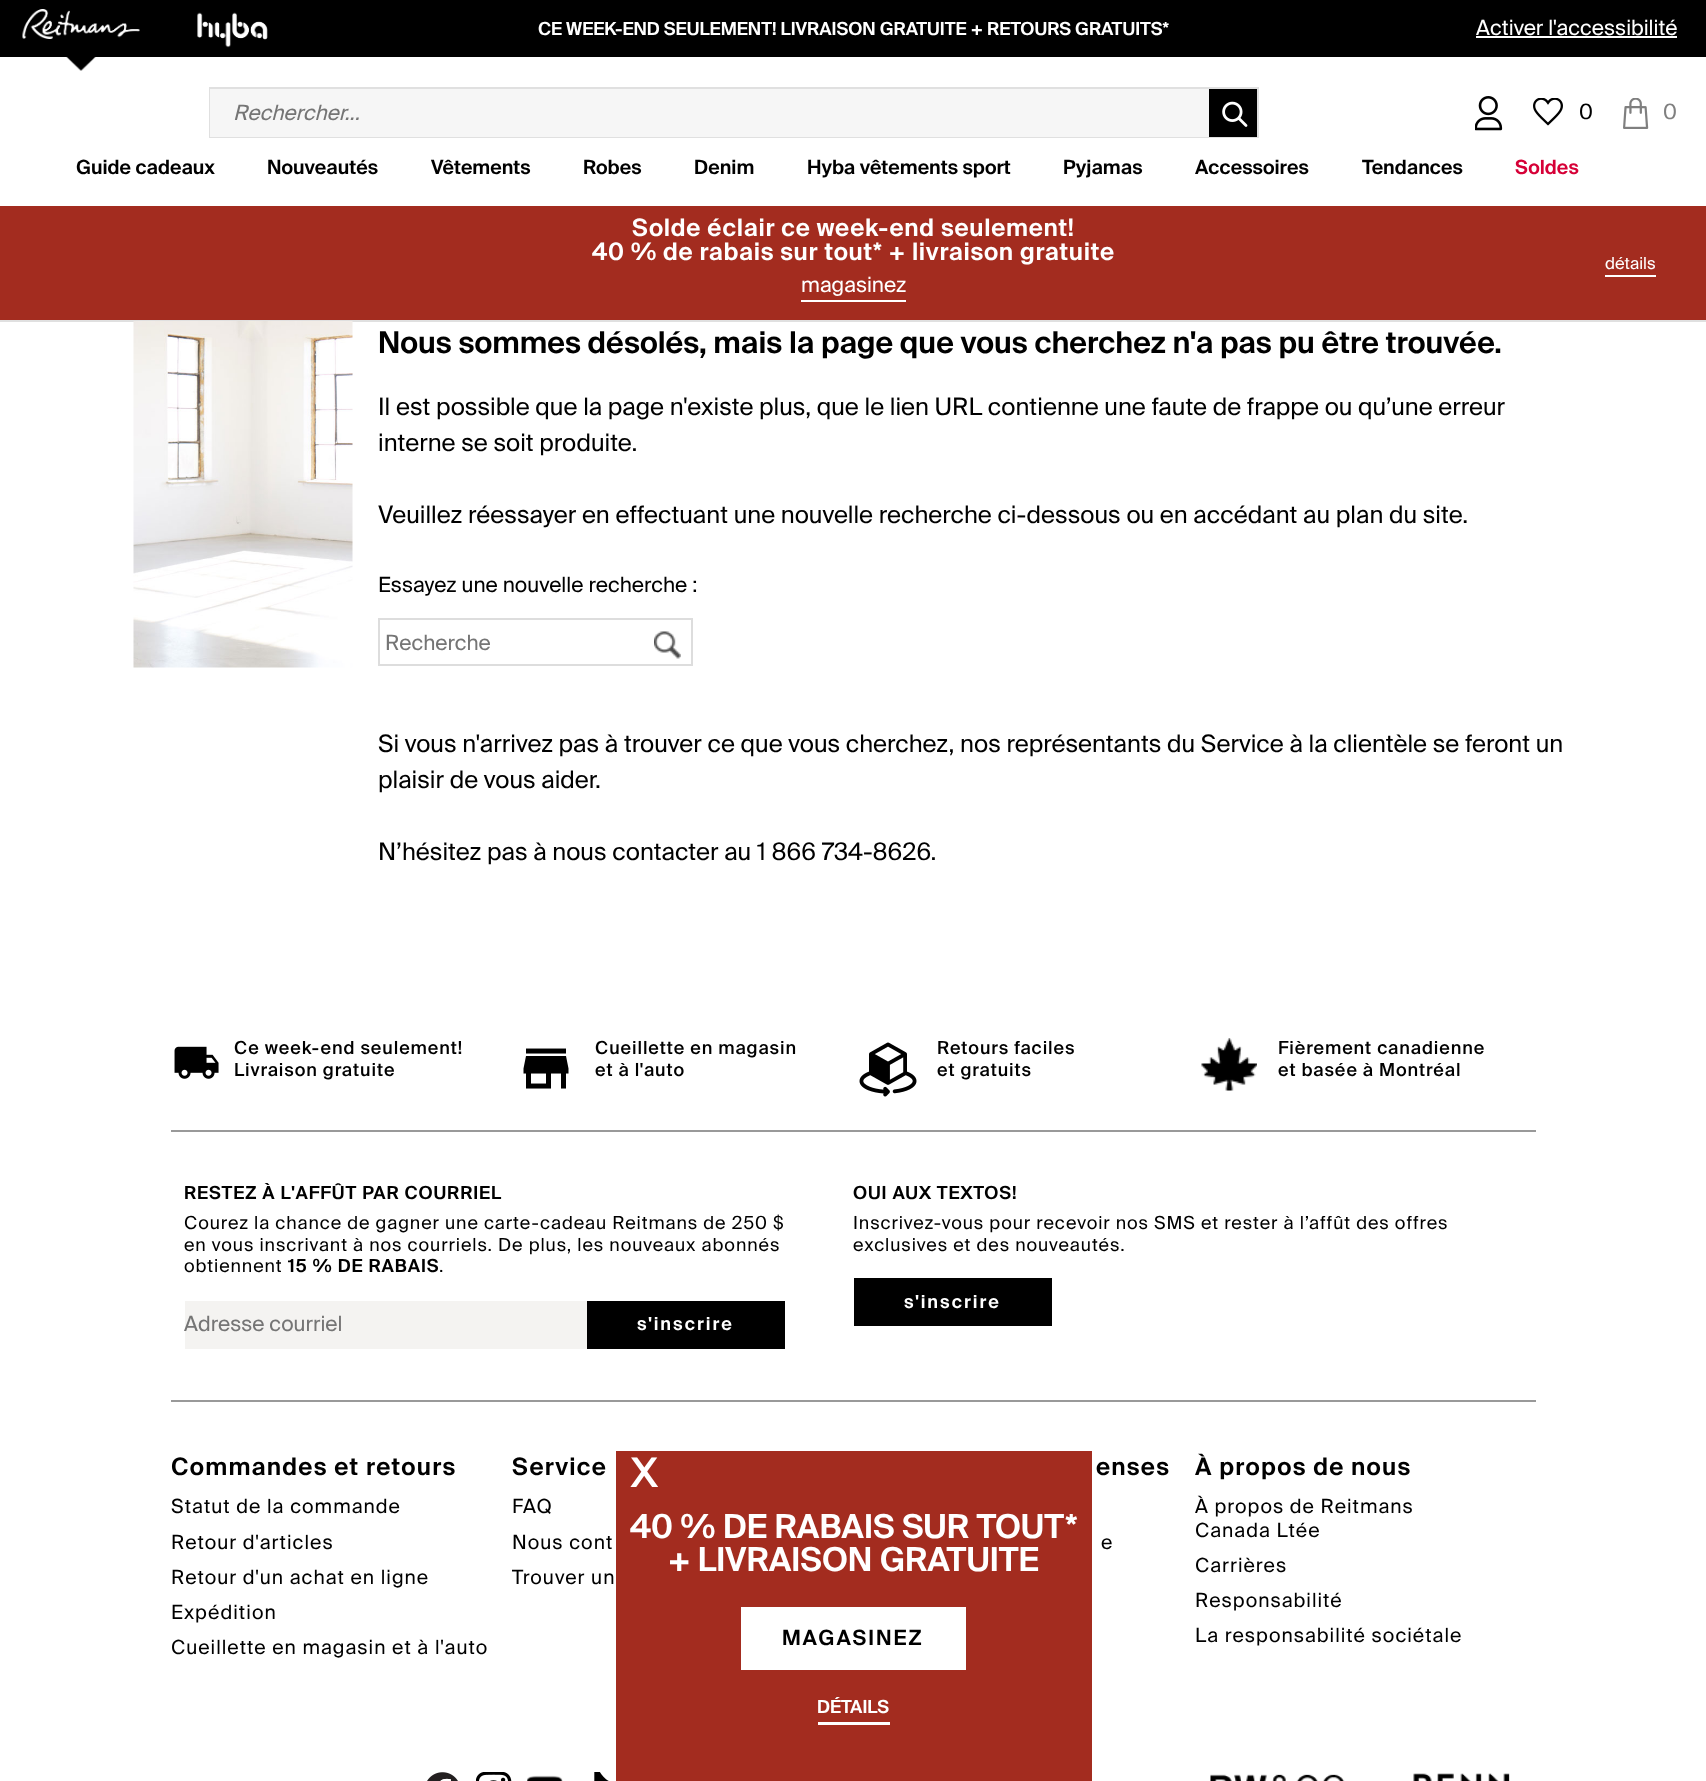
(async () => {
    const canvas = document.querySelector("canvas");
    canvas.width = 1706;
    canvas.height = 1781;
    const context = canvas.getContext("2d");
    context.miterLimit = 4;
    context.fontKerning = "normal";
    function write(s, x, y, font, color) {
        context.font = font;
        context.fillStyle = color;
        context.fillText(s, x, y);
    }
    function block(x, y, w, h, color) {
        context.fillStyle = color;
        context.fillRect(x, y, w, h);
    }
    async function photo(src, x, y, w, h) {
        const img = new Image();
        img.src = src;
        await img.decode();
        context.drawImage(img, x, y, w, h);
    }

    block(0, 0, 1706, 1781, "rgb(255, 255, 255)");
    block(0, 320, 1706, 2, "rgb(224, 224, 224)");
    block(0, 0, 1706, 57, "rgb(0, 0, 0)");
    await photo("media/1.png", 22, 9, 118, 30);
    await photo("media/2.png", 66, 57, 30, 14);
    await photo("media/3.png", 197, 12, 71, 36);
    write("CE WEEK-END SEULEMENT! LIVRAISON GRATUITE + RETOURS GRATUITS*", 538, 35, "600 18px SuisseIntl", "rgb(255, 255, 255)");
    write("Activer l'accessibilité", 1476, 35, "21px SuisseIntl", "rgb(255, 255, 255)");
    block(1476, 36, 201, 2, "rgb(255, 255, 255)");
    context.strokeStyle = "rgb(224, 224, 224)";
    context.lineWidth = 2;
    context.strokeRect(210, 88, 1048, 49);
    block(210, 89, 999, 48, "rgb(246, 246, 246)");
    write("Rechercher...", 233, 120, "italic 21px SuisseIntl", "rgb(117, 117, 117)");
    block(1209, 89, 48, 48, "rgb(0, 0, 0)");
    await photo("media/4.png", 1222, 101, 26, 26);
    await photo("media/5.png", 1475, 96, 28, 35);
    await photo("media/6.png", 1533, 98, 30, 28);
    write("0", 1579, 119, "21px SuisseIntl", "rgb(0, 0, 0)");
    await photo("media/7.png", 1623, 98, 26, 31);
    write("0", 1663, 119, "21px SuisseIntl", "rgb(128, 128, 128)");
    write("Guide cadeaux", 76, 174, "600 19.5px SuisseIntl", "rgb(0, 0, 0)");
    write("Nouveautés", 267, 174, "600 19.5px SuisseIntl", "rgb(0, 0, 0)");
    write("Vêtements", 431, 174, "600 19.5px SuisseIntl", "rgb(0, 0, 0)");
    write("Robes", 583, 174, "600 19.5px SuisseIntl", "rgb(0, 0, 0)");
    write("Denim", 694, 174, "600 19.5px SuisseIntl", "rgb(0, 0, 0)");
    write("Hyba vêtements sport", 807, 174, "600 19.5px SuisseIntl", "rgb(0, 0, 0)");
    write("Pyjamas", 1063, 174, "600 19.5px SuisseIntl", "rgb(0, 0, 0)");
    write("Accessoires", 1195, 174, "600 19.5px SuisseIntl", "rgb(0, 0, 0)");
    write("Tendances", 1362, 174, "600 19.5px SuisseIntl", "rgb(0, 0, 0)");
    write("Soldes", 1515, 174, "600 19.5px SuisseIntl", "rgb(214, 0, 55)");
    block(0, 206, 1706, 114, "rgb(163, 44, 31)");
    context.letterSpacing = "0.7px";
    write("Solde éclair ce week-end seulement!", 632, 236, "600 24px SuisseIntl", "rgb(255, 255, 255)");
    write("40 % de rabais sur tout* + livraison gratuite", 592, 260, "600 24px SuisseIntl", "rgb(255, 255, 255)");
    context.letterSpacing = "0px";
    write("détails", 1605, 269, "16.5px SuisseIntl", "rgb(255, 255, 255)");
    block(1605, 275, 51, 2, "rgb(255, 255, 255)");
    write("magasinez", 801, 292, "21px SuisseIntl", "rgb(255, 255, 255)");
    block(801, 300, 105, 2, "rgb(255, 255, 255)");
    await photo("media/8.png", 133, 321, 220, 347);
    write("Nous sommes désolés, mais la page que vous cherchez n'a pas pu être trouvée.", 378, 353, "600 30px SuisseIntl", "rgb(0, 0, 0)");
    write("Il est possible que la page n'existe plus, que le lien URL contienne une faute de frappe ou qu’une erreur", 378, 415, "24px SuisseIntl", "rgb(0, 0, 0)");
    write("interne se soit produite.", 378, 451, "24px SuisseIntl", "rgb(0, 0, 0)");
    write("Veuillez réessayer en effectuant une nouvelle recherche ci-dessous ou en accédant au plan du site.", 378, 523, "24px SuisseIntl", "rgb(0, 0, 0)");
    write("Essayez une nouvelle recherche :", 378, 592, "21px SuisseIntl", "rgb(0, 0, 0)");
    context.strokeStyle = "rgb(221, 221, 221)";
    context.strokeRect(379, 619, 313, 46);
    write("Recherche", 385, 650, "21px SuisseIntl", "rgb(117, 117, 117)");
    await photo("media/9.png", 654, 631, 27, 28);
    write("Si vous n'arrivez pas à trouver ce que vous cherchez, nos représentants du Service à la clientèle se feront un", 378, 752, "24px SuisseIntl", "rgb(0, 0, 0)");
    write("plaisir de vous aider.", 378, 788, "24px SuisseIntl", "rgb(0, 0, 0)");
    write("N’hésitez pas à nous contacter au 1 866 734-8626.", 378, 860, "24px SuisseIntl", "rgb(0, 0, 0)");
    block(171, 1130, 1365, 2, "rgb(153, 153, 153)");
    await photo("media/10.png", 174, 1046, 45, 33);
    context.letterSpacing = "0.9px";
    write("Ce week-end seulement!", 234, 1054, "500 18px SuisseIntl", "rgb(0, 0, 0)");
    write("Livraison gratuite", 234, 1076, "500 18px SuisseIntl", "rgb(0, 0, 0)");
    await photo("media/11.png", 523, 1048, 46, 41);
    write("Cueillette en magasin", 595, 1054, "500 18px SuisseIntl", "rgb(0, 0, 0)");
    write("et à l'auto", 595, 1076, "500 18px SuisseIntl", "rgb(0, 0, 0)");
    await photo("media/12.png", 859, 1042, 58, 55);
    write("Retours faciles", 937, 1054, "500 18px SuisseIntl", "rgb(0, 0, 0)");
    write("et gratuits", 937, 1076, "500 18px SuisseIntl", "rgb(0, 0, 0)");
    await photo("media/13.png", 1201, 1038, 56, 53);
    write("Fièrement canadienne", 1278, 1054, "500 18px SuisseIntl", "rgb(0, 0, 0)");
    write("et basée à Montréal", 1278, 1076, "500 18px SuisseIntl", "rgb(0, 0, 0)");
    block(171, 1400, 1365, 2, "rgb(153, 153, 153)");
    write("RESTEZ À L'AFFÛT PAR COURRIEL", 184, 1199, "600 18px SuisseIntl", "rgb(0, 0, 0)");
    write("Courez la chance de gagner une carte-cadeau Reitmans de 250 $", 184, 1229, "18px SuisseIntl", "rgb(0, 0, 0)");
    write("en vous inscrivant à nos courriels. De plus, les nouveaux abonnés", 184, 1251, "18px SuisseIntl", "rgb(0, 0, 0)");
    write("obtiennent", 184, 1272, "18px SuisseIntl", "rgb(0, 0, 0)");
    write("15 % DE RABAIS", 288, 1272, "600 18px SuisseIntl", "rgb(0, 0, 0)");
    write(".", 439, 1272, "18px SuisseIntl", "rgb(0, 0, 0)");
    block(185, 1301, 402, 48, "rgb(244, 243, 241)");
    context.letterSpacing = "0px";
    write("Adresse courriel", 184, 1331, "21px SuisseIntl", "rgb(117, 117, 117)");
    block(587, 1301, 198, 48, "rgb(0, 0, 0)");
    context.letterSpacing = "2px";
    write("s'inscrire", 637, 1330, "600 18px SuisseIntl", "rgb(255, 255, 255)");
    context.letterSpacing = "0.9px";
    write("OUI AUX TEXTOS!", 853, 1199, "600 18px SuisseIntl", "rgb(0, 0, 0)");
    write("Inscrivez-vous pour recevoir nos SMS et rester à l’affût des offres", 853, 1229, "18px SuisseIntl", "rgb(0, 0, 0)");
    write("exclusives et des nouveautés.", 853, 1251, "18px SuisseIntl", "rgb(0, 0, 0)");
    block(854, 1278, 198, 48, "rgb(0, 0, 0)");
    context.letterSpacing = "2px";
    write("s'inscrire", 904, 1308, "600 18px SuisseIntl", "rgb(255, 255, 255)");
    context.letterSpacing = "1.2px";
    write("Commandes et retours", 171, 1475, "600 24px SuisseIntl", "rgb(0, 0, 0)");
    context.letterSpacing = "1px";
    write("Statut de la commande", 171, 1513, "19.5px SuisseIntl", "rgb(0, 0, 0)");
    write("Retour d'articles", 171, 1549, "19.5px SuisseIntl", "rgb(0, 0, 0)");
    write("Retour d'un achat en ligne", 171, 1584, "19.5px SuisseIntl", "rgb(0, 0, 0)");
    write("Expédition", 171, 1619, "19.5px SuisseIntl", "rgb(0, 0, 0)");
    write("Cueillette en magasin et à l'auto", 171, 1654, "19.5px SuisseIntl", "rgb(0, 0, 0)");
    context.letterSpacing = "1.2px";
    write("Service", 512, 1475, "600 24px SuisseIntl", "rgb(0, 0, 0)");
    context.letterSpacing = "1px";
    write("FAQ", 512, 1513, "19.5px SuisseIntl", "rgb(0, 0, 0)");
    write("Nous cont", 512, 1549, "19.5px SuisseIntl", "rgb(0, 0, 0)");
    write("Trouver un", 512, 1584, "19.5px SuisseIntl", "rgb(0, 0, 0)");
    context.letterSpacing = "1.2px";
    write("enses", 1096, 1475, "600 24px SuisseIntl", "rgb(0, 0, 0)");
    context.letterSpacing = "1px";
    write("e", 1101, 1549, "19.5px SuisseIntl", "rgb(0, 0, 0)");
    context.letterSpacing = "1.2px";
    write("À propos de nous", 1195, 1475, "600 24px SuisseIntl", "rgb(0, 0, 0)");
    context.letterSpacing = "1px";
    write("À propos de Reitmans", 1195, 1513, "19.5px SuisseIntl", "rgb(0, 0, 0)");
    write("Canada Ltée", 1195, 1537, "19.5px SuisseIntl", "rgb(0, 0, 0)");
    write("Carrières", 1195, 1572, "19.5px SuisseIntl", "rgb(0, 0, 0)");
    write("Responsabilité", 1195, 1607, "19.5px SuisseIntl", "rgb(0, 0, 0)");
    write("La responsabilité sociétale", 1195, 1642, "19.5px SuisseIntl", "rgb(0, 0, 0)");
    await photo("media/14.png", 427, 1772, 31, 9);
    await photo("media/15.png", 476, 1772, 36, 9);
    await photo("media/16.png", 527, 1775, 36, 6);
    await photo("media/17.png", 594, 1772, 15, 9);
    await photo("media/18.png", 1210, 1774, 135, 7);
    await photo("media/19.png", 1413, 1773, 97, 8);
    block(616, 1451, 476, 330, "rgb(163, 44, 31)");
    context.letterSpacing = "0px";
    write("x", 630, 1487, "55px SuisseIntl", "rgb(255, 255, 255)");
    write("40 % DE RABAIS SUR TOUT*", 630, 1538, "600 33px SuisseIntl", "rgb(255, 255, 255)");
    write("+ LIVRAISON GRATUITE", 668, 1571, "600 33px SuisseIntl", "rgb(255, 255, 255)");
    block(741, 1607, 225, 63, "rgb(255, 255, 255)");
    context.letterSpacing = "2px";
    write("MAGASINEZ", 782, 1645, "600 21px SuisseIntl", "rgb(0, 0, 0)");
    context.letterSpacing = "0px";
    write("DÉTAILS", 817, 1713, "600 18px SuisseIntl", "rgb(255, 255, 255)");
    block(818, 1722, 72, 3, "rgb(255, 255, 255)");
})();
